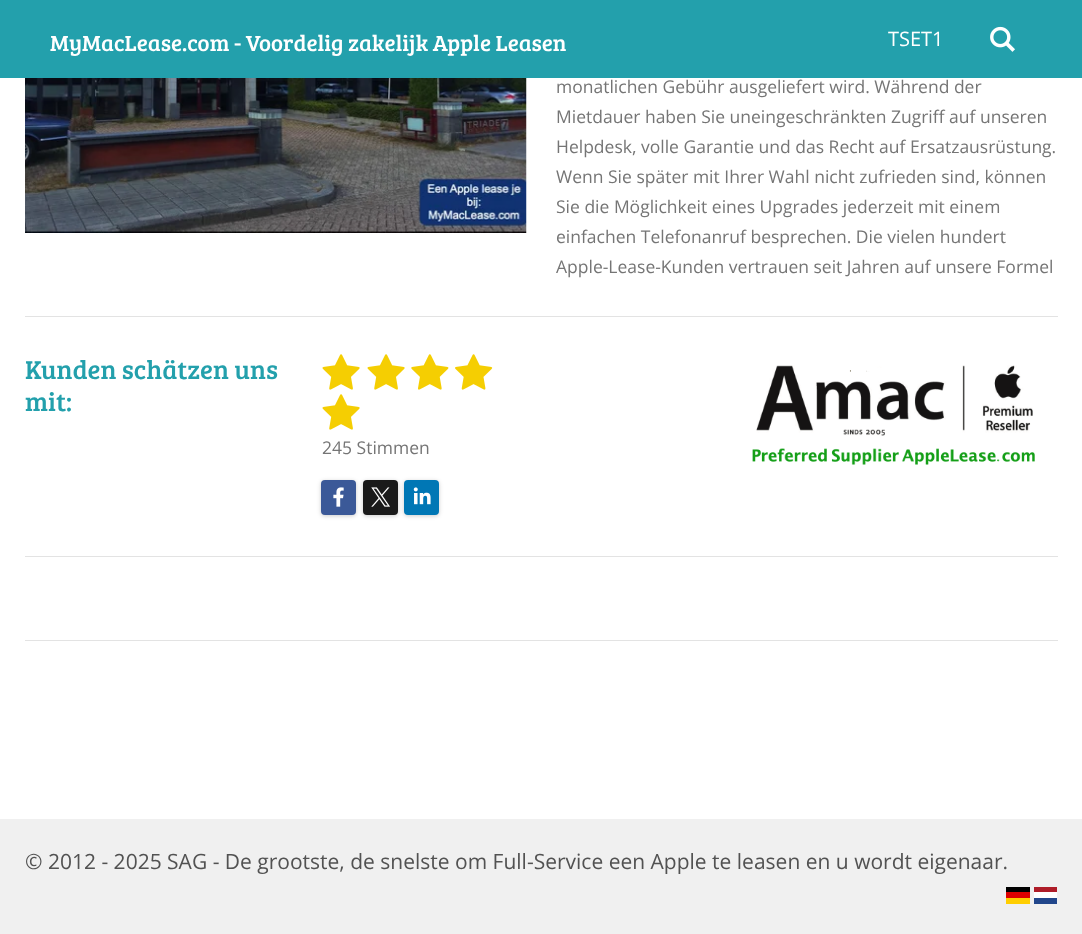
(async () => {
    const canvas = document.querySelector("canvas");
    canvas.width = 1082;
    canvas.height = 934;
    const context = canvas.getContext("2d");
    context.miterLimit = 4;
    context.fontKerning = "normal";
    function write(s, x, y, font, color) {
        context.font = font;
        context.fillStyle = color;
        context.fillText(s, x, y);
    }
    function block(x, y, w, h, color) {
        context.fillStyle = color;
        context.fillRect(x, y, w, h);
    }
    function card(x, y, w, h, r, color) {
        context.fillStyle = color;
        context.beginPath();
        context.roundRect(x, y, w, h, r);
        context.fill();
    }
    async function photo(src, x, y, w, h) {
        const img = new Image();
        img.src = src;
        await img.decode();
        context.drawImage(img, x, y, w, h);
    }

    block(0, 0, 1082, 934, "rgb(255, 255, 255)");
    block(0, 0, 1082, 78, "rgb(35, 160, 172)");
    write("MyMacLease.com - Voordelig zakelijk Apple Leasen", 50, 51, "22.75px Bree Serif", "rgb(255, 255, 255)");
    write("TSET1", 888, 46, "20px Open Sans", "rgb(255, 255, 255)");
    await photo("media/1.png", 990, 26, 25, 26);
    await photo("media/2.png", 25, 78, 502, 155);
    write("monatlichen Gebühr ausgeliefert wird. Während der", 556, 93, "17.5px Open Sans", "rgb(117, 117, 117)");
    write("Mietdauer haben Sie uneingeschränkten Zugriff auf unseren", 556, 123, "17.5px Open Sans", "rgb(117, 117, 117)");
    write("Helpdesk, volle Garantie und das Recht auf Ersatzausrüstung.", 556, 153, "17.5px Open Sans", "rgb(117, 117, 117)");
    write("Wenn Sie später mit Ihrer Wahl nicht zufrieden sind, können", 556, 183, "17.5px Open Sans", "rgb(117, 117, 117)");
    write("Sie die Möglichkeit eines Upgrades jederzeit mit einem", 556, 213, "17.5px Open Sans", "rgb(117, 117, 117)");
    write("einfachen Telefonanruf besprechen. Die vielen hundert", 556, 243, "17.5px Open Sans", "rgb(117, 117, 117)");
    write("Apple-Lease-Kunden vertrauen seit Jahren auf unsere Formel", 556, 273, "17.5px Open Sans", "rgb(117, 117, 117)");
    block(25, 316, 1033, 1, "rgb(227, 227, 227)");
    write("Kunden schätzen uns", 25, 379, "26.6px Bree Serif", "rgb(35, 160, 172)");
    write("mit:", 25, 411, "26.6px Bree Serif", "rgb(35, 160, 172)");
    await photo("media/3.png", 322, 354, 38, 36);
    await photo("media/3.png", 367, 354, 38, 36);
    await photo("media/4.png", 411, 354, 38, 36);
    await photo("media/5.png", 455, 354, 38, 36);
    await photo("media/3.png", 322, 394, 38, 36);
    write("245 Stimmen", 322, 454, "17.5px Open Sans", "rgb(117, 117, 117)");
    context.fillStyle = "rgba(0, 0, 0, 0.2)";
    context.filter = "blur(2px)";
    context.beginPath();
    context.roundRect(321, 481, 35, 35, 4);
    context.fill();
    context.filter = "none";
    card(321, 480, 35, 35, 4, "rgb(59, 89, 152)");
    await photo("media/6.png", 333, 487, 11, 20);
    context.fillStyle = "rgba(0, 0, 0, 0.2)";
    context.filter = "blur(2px)";
    context.beginPath();
    context.roundRect(363, 481, 35, 35, 4);
    context.fill();
    context.filter = "none";
    card(363, 480, 35, 35, 4, "rgb(26, 26, 26)");
    await photo("media/7.png", 371, 487, 19, 20);
    context.fillStyle = "rgba(0, 0, 0, 0.2)";
    context.filter = "blur(2px)";
    context.beginPath();
    context.roundRect(404, 481, 35, 35, 4);
    context.fill();
    context.filter = "none";
    card(404, 480, 35, 35, 4, "rgb(0, 119, 181)");
    await photo("media/8.png", 413, 487, 18, 18);
    await photo("media/9.png", 752, 365, 283, 100);
    block(25, 556, 1033, 1, "rgb(227, 227, 227)");
    block(25, 640, 1033, 1, "rgb(227, 227, 227)");
    block(0, 819, 1082, 115, "rgb(240, 240, 240)");
    write("© 2012 - 2025 SAG - De grootste, de snelste om Full-Service een Apple te leasen en u wordt eigenaar.", 25, 869, "21px Open Sans", "rgb(82, 82, 82)");
    block(1006, 898, 24, 6, "rgb(255, 206, 0)");
    block(1006, 887, 24, 5, "rgb(0, 0, 0)");
    block(1006, 892, 24, 6, "rgb(221, 0, 0)");
    block(1034, 898, 23, 6, "rgb(33, 70, 139)");
    block(1034, 892, 23, 6, "rgb(255, 255, 255)");
    block(1034, 887, 23, 5, "rgb(174, 28, 40)");
})();
